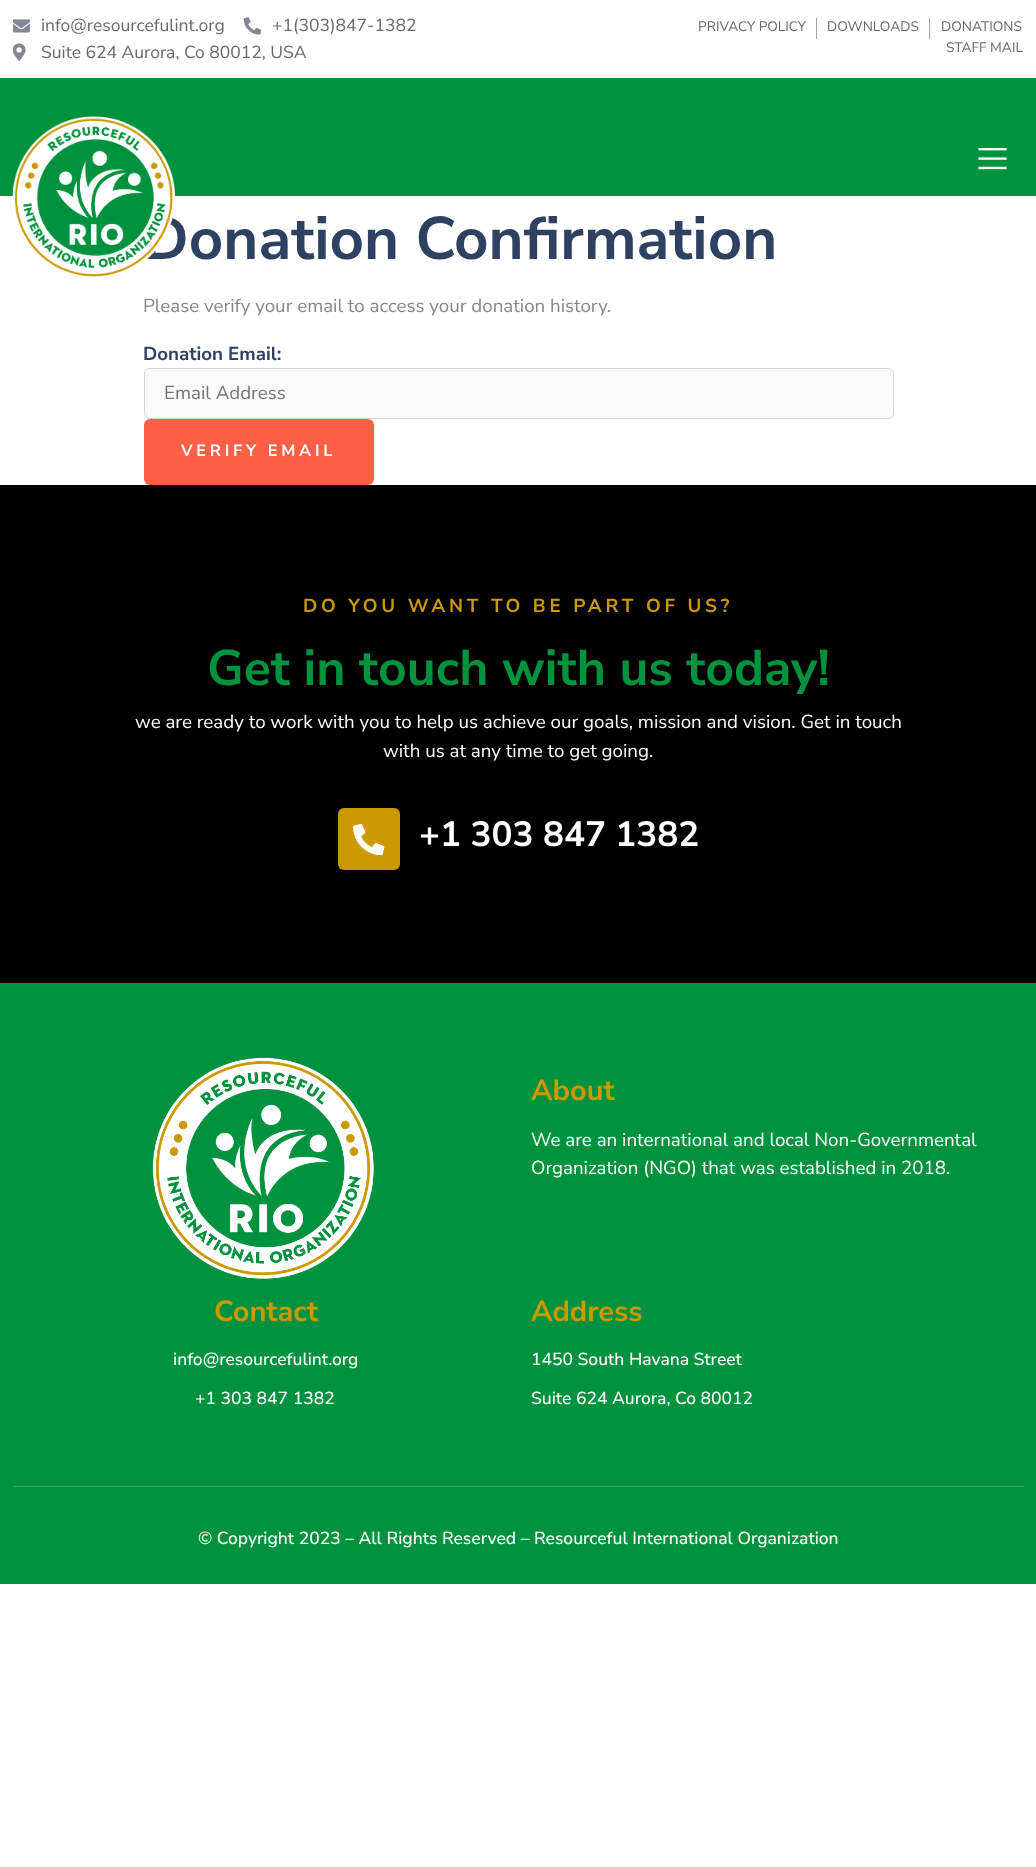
(async () => {
    const canvas = document.querySelector("canvas");
    canvas.width = 1036;
    canvas.height = 1867;
    const context = canvas.getContext("2d");
    context.miterLimit = 4;
    context.fontKerning = "normal";
    function write(s, x, y, font, color) {
        context.font = font;
        context.fillStyle = color;
        context.fillText(s, x, y);
    }
    function block(x, y, w, h, color) {
        context.fillStyle = color;
        context.fillRect(x, y, w, h);
    }
    function card(x, y, w, h, r, color) {
        context.fillStyle = color;
        context.beginPath();
        context.roundRect(x, y, w, h, r);
        context.fill();
    }
    async function photo(src, x, y, w, h) {
        const img = new Image();
        img.src = src;
        await img.decode();
        context.drawImage(img, x, y, w, h);
    }

    block(0, 0, 1036, 1867, "rgb(255, 255, 255)");
    await photo("media/1.png", 13, 19, 17, 14);
    write("info@resourcefulint.org", 41, 31, "17.5px Nunito Sans", "rgb(104, 104, 104)");
    await photo("media/2.png", 243, 17, 19, 18);
    write("+1(303)847-1382", 272, 31, "17.5px Nunito Sans", "rgb(104, 104, 104)");
    await photo("media/3.png", 13, 43, 13, 18);
    write("Suite 624 Aurora, Co 80012, USA", 41, 58, "17.5px Nunito Sans", "rgb(104, 104, 104)");
    write("PRIVACY POLICY", 698, 31, "13.75px Nunito Sans", "rgb(104, 104, 104)");
    block(816, 18, 1, 21, "rgb(165, 165, 165)");
    write("DOWNLOADS", 827, 31, "13.75px Nunito Sans", "rgb(104, 104, 104)");
    block(929, 18, 1, 21, "rgb(165, 165, 165)");
    write("DONATIONS", 941, 31, "13.75px Nunito Sans", "rgb(104, 104, 104)");
    write("STAFF MAIL", 946, 52, "13.75px Nunito Sans", "rgb(104, 104, 104)");
    block(0, 78, 1036, 118, "rgb(0, 146, 63)");
    write("Donation Confirmation", 143, 259, "bold 60px Nunito Sans", "rgb(47, 65, 96)");
    await photo("media/4.png", 12, 116, 163, 161);
    await photo("media/5.png", 978, 148, 29, 22);
    write("Please verify your email to access your donation history.", 143, 312, "18.75px Nunito Sans", "rgb(131, 134, 148)");
    write("Donation Email:", 143, 360, "bold 18.75px Nunito Sans", "rgb(47, 65, 96)");
    context.fillStyle = "rgb(250, 250, 250)";
    context.beginPath();
    context.roundRect(144.5, 368.5, 749, 50, 5.5);
    context.fill();
    context.strokeStyle = "rgb(212, 212, 212)";
    context.stroke();
    write("Email Address", 164, 399, "18.75px Nunito Sans", "rgb(117, 117, 117)");
    card(144, 419, 230, 66, 6, "rgb(253, 96, 71)");
    context.letterSpacing = "3.75px";
    write("VERIFY EMAIL", 181, 456, "bold 16.25px Nunito Sans", "rgb(255, 255, 255)");
    block(0, 485, 1036, 498, "rgb(0, 0, 0)");
    write("DO YOU WANT TO BE PART OF US?", 303, 612, "bold 18.75px Nunito Sans", "rgb(204, 153, 0)");
    context.letterSpacing = "0px";
    write("Get in touch with us today!", 207, 685, "bold 50px Nunito Sans", "rgb(0, 146, 63)");
    write("we are ready to work with you to help us achieve our goals, mission and vision. Get in touch", 135, 728, "18.75px Nunito Sans", "rgb(255, 255, 255)");
    write("with us at any time to get going.", 383, 757, "18.75px Nunito Sans", "rgb(255, 255, 255)");
    card(338, 808, 62, 62, 6, "rgb(204, 153, 0)");
    await photo("media/6.png", 353, 823, 32, 33);
    write("+1 303 847 1382", 419, 846, "bold 35px Nunito Sans", "rgb(255, 255, 255)");
    block(0, 983, 1036, 601, "rgb(0, 146, 63)");
    await photo("media/7.png", 152, 1057, 222, 222);
    write("About", 531, 1100, "bold 29px Nunito Sans", "rgb(204, 153, 0)");
    write("We are an international and local Non-Governmental", 531, 1146, "18.75px Nunito Sans", "rgb(255, 255, 255)");
    write("Organization (NGO) that was established in 2018.", 531, 1174, "18.75px Nunito Sans", "rgb(255, 255, 255)");
    write("Contact", 214, 1321, "bold 29px Nunito Sans", "rgb(204, 153, 0)");
    write("info@resourcefulint.org", 173, 1365, "500 17.5px Nunito Sans", "rgb(255, 255, 255)");
    write("+1 303 847 1382", 195, 1404, "500 17.5px Nunito Sans", "rgb(255, 255, 255)");
    write("Address", 531, 1321, "bold 29px Nunito Sans", "rgb(204, 153, 0)");
    write("1450 South Havana Street", 531, 1365, "500 17.5px Nunito Sans", "rgb(255, 255, 255)");
    write("Suite 624 Aurora, Co 80012", 531, 1404, "500 17.5px Nunito Sans", "rgb(255, 255, 255)");
    block(13, 1486, 1011, 1, "rgb(48, 167, 99)");
    write("© Copyright 2023 – All Rights Reserved – Resourceful International Organization", 198, 1544, "500 17.5px Nunito Sans", "rgb(255, 255, 255)");
})();
